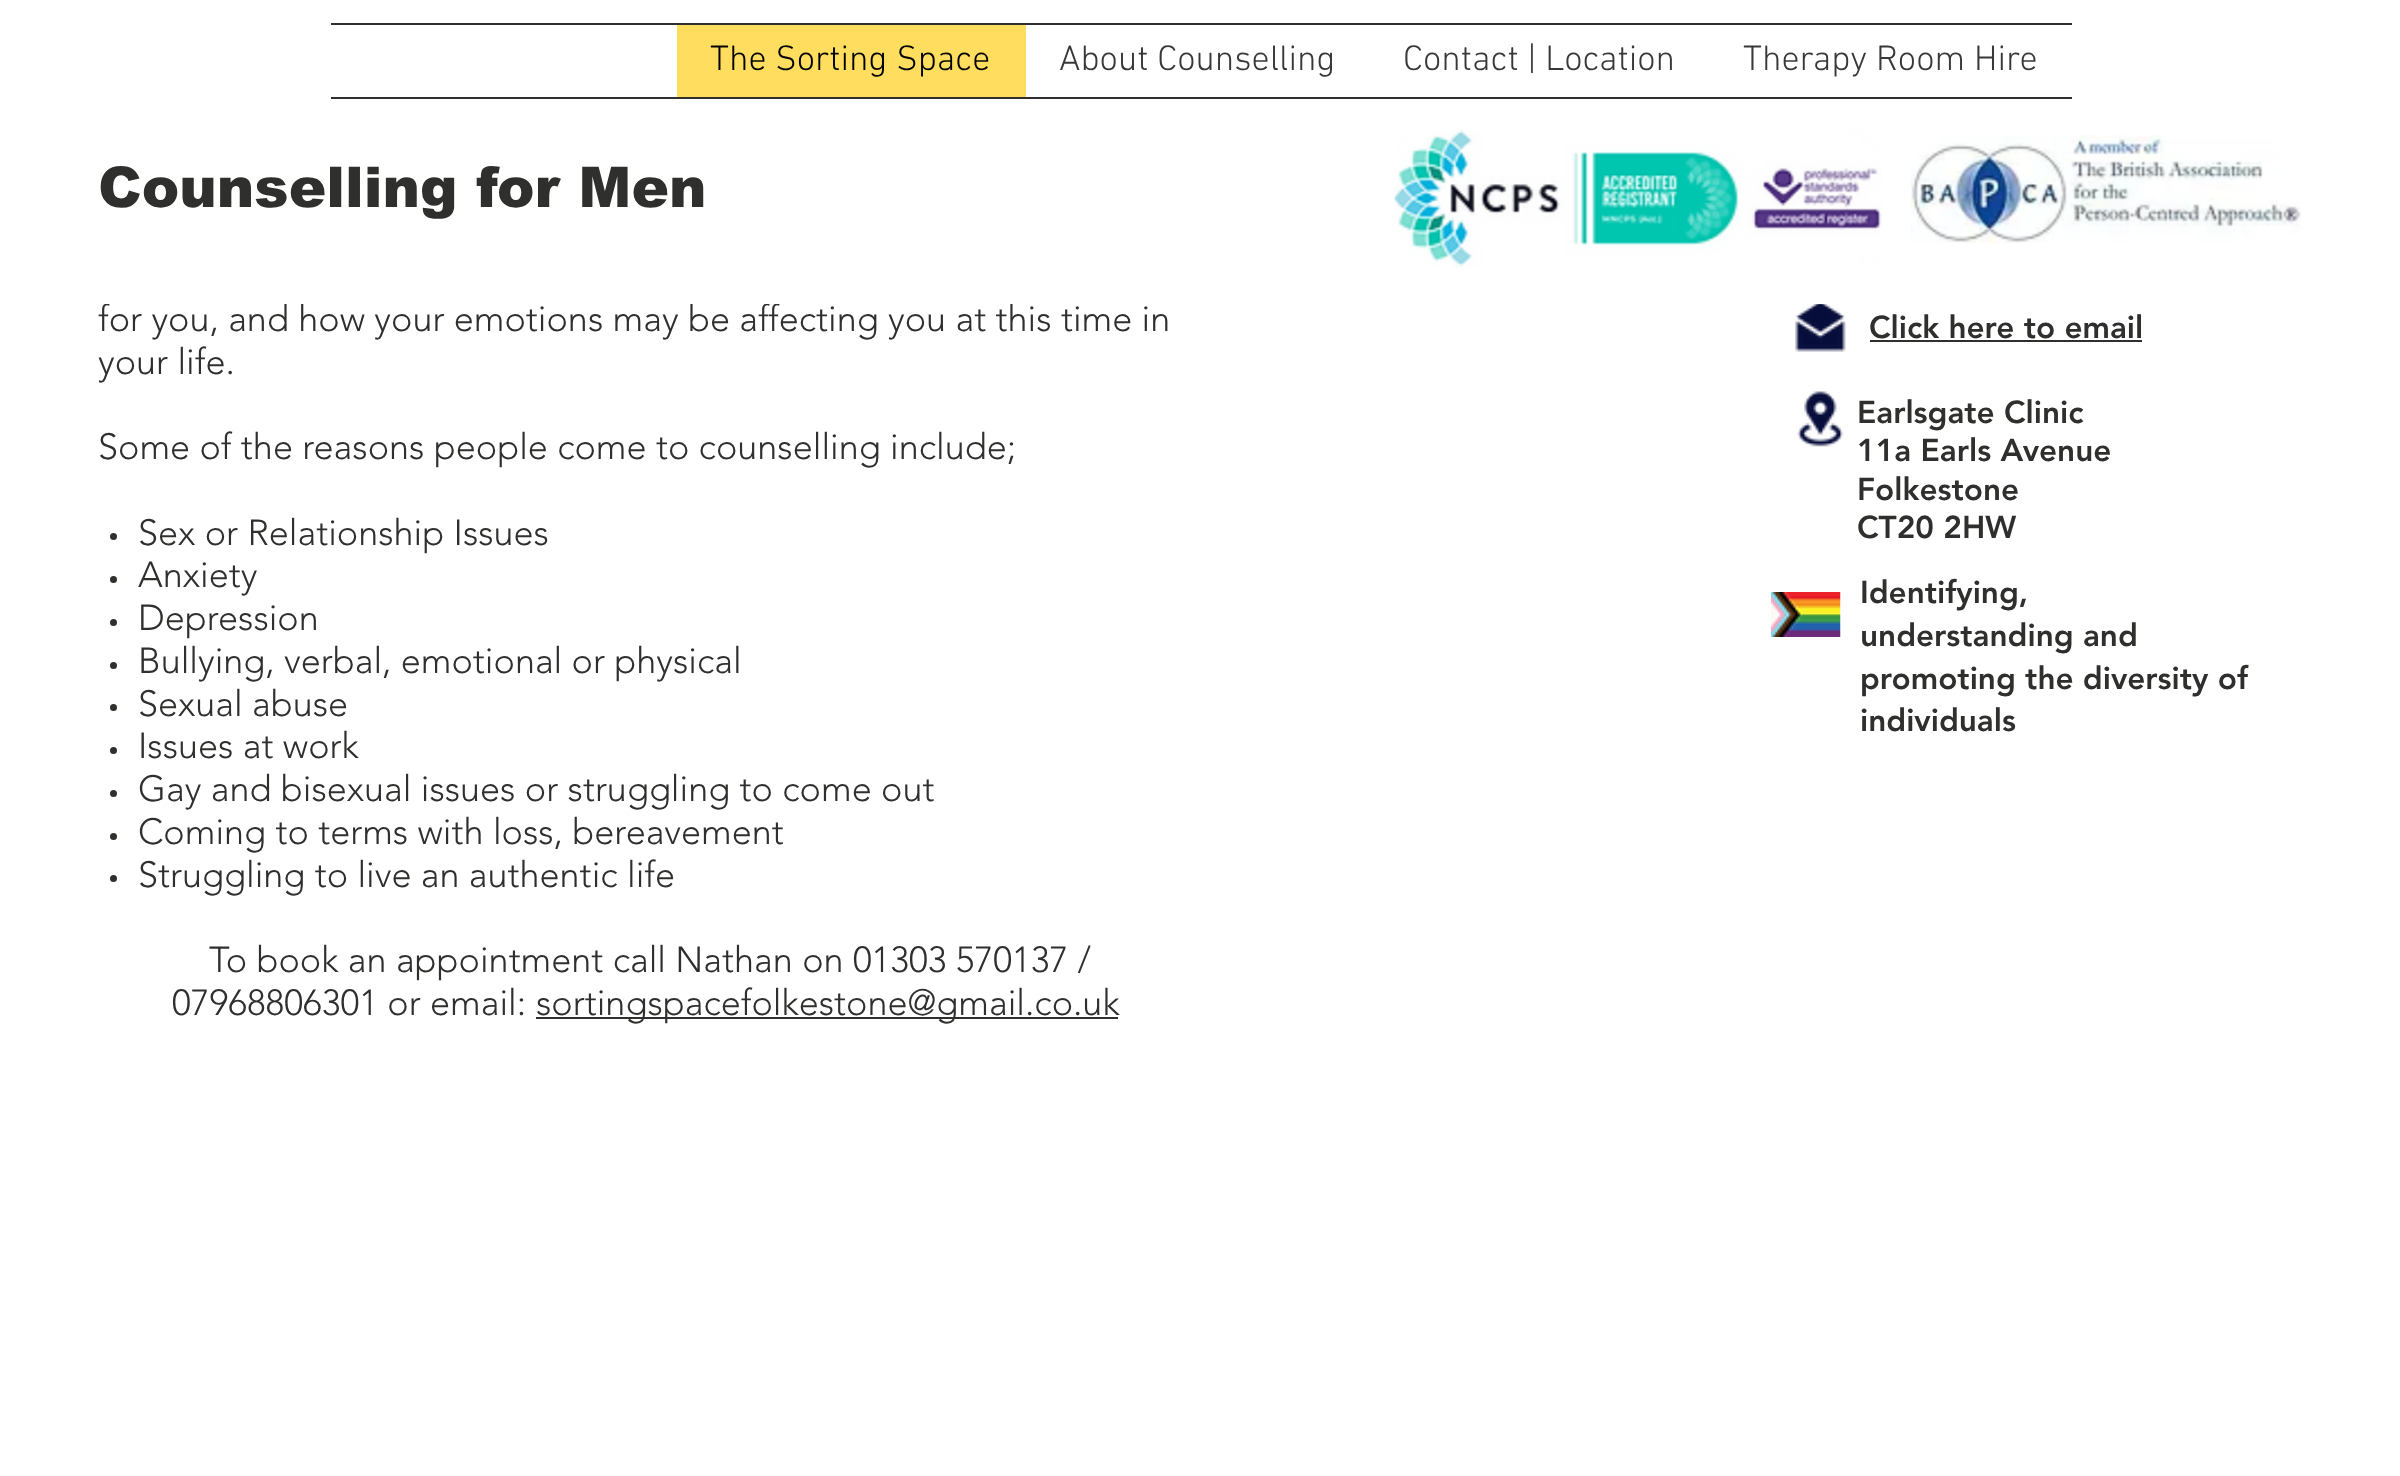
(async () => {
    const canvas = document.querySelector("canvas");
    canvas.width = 2400;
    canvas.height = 1476;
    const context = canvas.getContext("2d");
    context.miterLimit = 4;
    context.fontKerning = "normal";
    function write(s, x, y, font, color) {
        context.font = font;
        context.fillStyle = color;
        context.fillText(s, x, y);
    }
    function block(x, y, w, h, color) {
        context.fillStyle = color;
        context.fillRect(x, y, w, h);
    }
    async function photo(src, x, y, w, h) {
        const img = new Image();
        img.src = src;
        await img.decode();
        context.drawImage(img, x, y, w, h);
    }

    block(0, 0, 2400, 1476, "rgb(255, 255, 255)");
    block(331, 23, 1741, 2, "rgb(47, 47, 46)");
    block(331, 97, 1741, 2, "rgb(47, 47, 46)");
    block(677, 25, 349, 72, "rgb(255, 222, 95)");
    write("The Sorting Space", 710, 70, "300 36px 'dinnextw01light'", "rgb(0, 0, 0)");
    write("About Counselling", 1059, 70, "300 36px 'dinnextw01light'", "rgb(56, 56, 56)");
    write("Contact | Location", 1403, 70, "300 36px 'dinnextw01light'", "rgb(56, 56, 56)");
    write("Therapy Room Hire", 1743, 70, "300 36px 'dinnextw01light'", "rgb(56, 56, 56)");
    write("Counselling for Men", 98, 207, "900 56.25px arial", "rgb(47, 47, 46)");
    await photo("media/1.png", 1394, 130, 488, 137);
    await photo("media/2.png", 1910, 135, 391, 109);
    write("for you, and how your emotions may be affecting you at this time in", 98, 331, "300 36px 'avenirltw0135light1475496'", "rgb(47, 47, 46)");
    block(104, 303, 909, 1, "rgb(255, 255, 255)");
    write("your life.", 98, 374, "300 36px 'avenirltw0135light1475496'", "rgb(47, 47, 46)");
    write("Some of the reasons people come to counselling include;", 98, 459, "300 36px 'avenirltw0135light1475496'", "rgb(47, 47, 46)");
    context.beginPath();
    context.arc(113.5, 536.5, 3.5, 0, Math.PI * 2);
    context.fill();
    write("Sex or Relationship Issues", 138, 545, "300 36px 'avenirltw0135light1475496'", "rgb(47, 47, 46)");
    context.beginPath();
    context.arc(113.5, 579.5, 3.5, 0, Math.PI * 2);
    context.fill();
    write("Anxiety", 138, 587, "300 36px 'avenirltw0135light1475496'", "rgb(47, 47, 46)");
    context.beginPath();
    context.arc(113.5, 622.5, 3.5, 0, Math.PI * 2);
    context.fill();
    write("Depression", 138, 630, "300 36px 'avenirltw0135light1475496'", "rgb(47, 47, 46)");
    context.beginPath();
    context.arc(113.5, 665.5, 3.5, 0, Math.PI * 2);
    context.fill();
    write("Bullying, verbal, emotional or physical", 138, 673, "300 36px 'avenirltw0135light1475496'", "rgb(47, 47, 46)");
    context.beginPath();
    context.arc(113.5, 707.5, 3.5, 0, Math.PI * 2);
    context.fill();
    write("Sexual abuse", 138, 716, "300 36px 'avenirltw0135light1475496'", "rgb(47, 47, 46)");
    context.beginPath();
    context.arc(113.5, 750.5, 3.5, 0, Math.PI * 2);
    context.fill();
    write("Issues at work", 138, 758, "300 36px 'avenirltw0135light1475496'", "rgb(47, 47, 46)");
    context.beginPath();
    context.arc(113.5, 793.5, 3.5, 0, Math.PI * 2);
    context.fill();
    write("Gay and bisexual issues or struggling to come out", 138, 801, "300 36px 'avenirltw0135light1475496'", "rgb(47, 47, 46)");
    context.beginPath();
    context.arc(113.5, 836.5, 3.5, 0, Math.PI * 2);
    context.fill();
    write("Coming to terms with loss, bereavement", 138, 844, "300 36px 'avenirltw0135light1475496'", "rgb(47, 47, 46)");
    context.beginPath();
    context.arc(113.5, 878.5, 3.5, 0, Math.PI * 2);
    context.fill();
    write("Struggling to live an authentic life", 138, 887, "300 36px 'avenirltw0135light1475496'", "rgb(47, 47, 46)");
    write("To book an appointment call Nathan on 01303 570137 /", 209, 972, "300 36px 'avenirltw0135light1475496'", "rgb(47, 47, 46)");
    write("07968806301 or email:", 172, 1015, "300 36px 'avenirltw0135light1475496'", "rgb(47, 47, 46)");
    block(536, 1017, 582, 2, "rgb(47, 47, 46)");
    write("sortingspacefolkestone@gmail.co.uk", 536, 1015, "300 36px 'avenirltw0135light1475496'", "rgb(47, 47, 46)");
    write("Earlsgate Clinic", 1857, 423, "900 31.5px 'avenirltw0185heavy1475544'", "rgb(47, 47, 46)");
    write("11a Earls Avenue", 1857, 461, "900 31.5px 'avenirltw0185heavy1475544'", "rgb(47, 47, 46)");
    write("Folkestone", 1857, 500, "900 31.5px 'avenirltw0185heavy1475544'", "rgb(47, 47, 46)");
    write("CT20 2HW", 1857, 538, "900 31.5px 'avenirltw0185heavy1475544'", "rgb(47, 47, 46)");
    await photo("media/3.png", 1770, 592, 71, 45);
    write("Identifying,", 1860, 603, "900 31.5px 'avenirltw0185heavy1475544'", "rgb(47, 47, 46)");
    write("understanding and", 1860, 646, "900 31.5px 'avenirltw0185heavy1475544'", "rgb(47, 47, 46)");
    write("promoting the diversity of", 1860, 689, "900 31.5px 'avenirltw0185heavy1475544'", "rgb(47, 47, 46)");
    write("individuals", 1860, 731, "900 31.5px 'avenirltw0185heavy1475544'", "rgb(47, 47, 46)");
    await photo("media/4.png", 1795, 304, 51, 48);
    write("Click here to email", 1869, 338, "900 31.5px 'avenirltw0185heavy1475544'", "rgb(47, 47, 46)");
    block(1870, 340, 272, 2, "rgb(47, 47, 46)");
    await photo("media/5.png", 1797, 391, 47, 56);
})();
